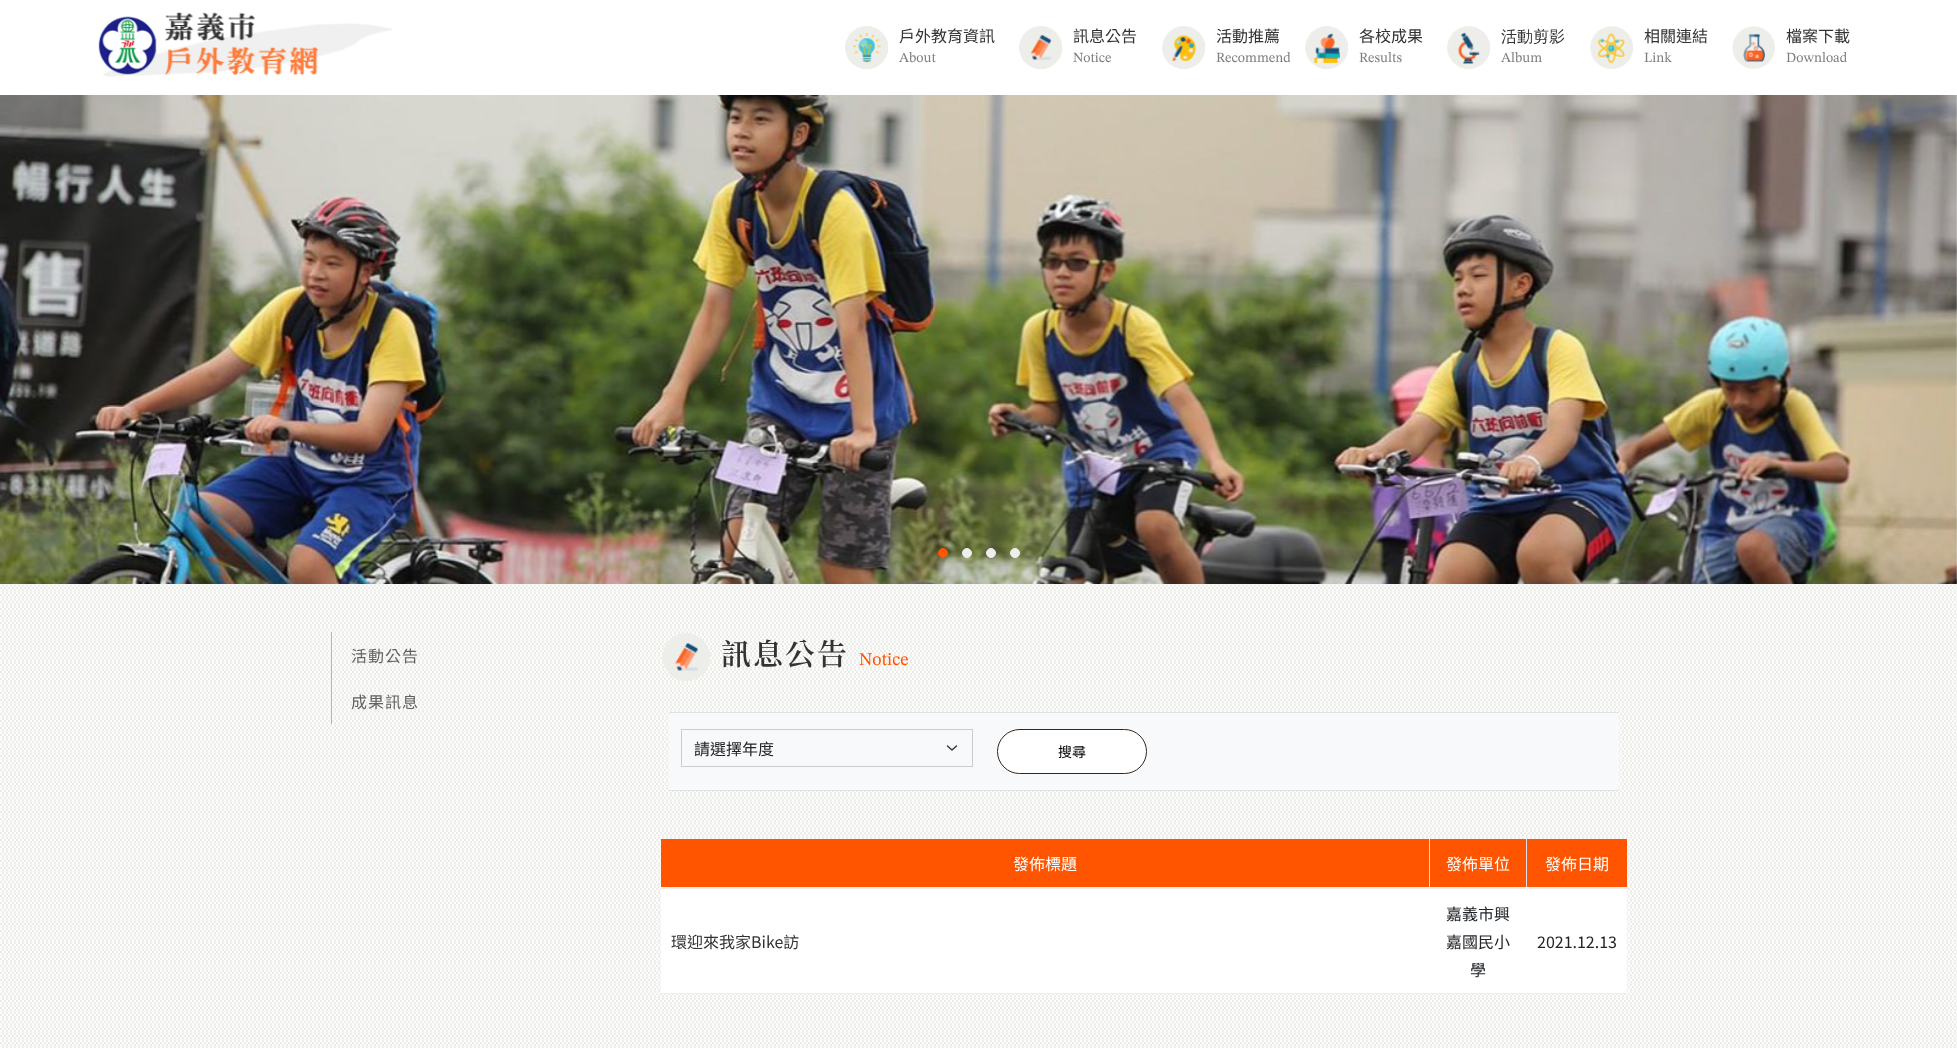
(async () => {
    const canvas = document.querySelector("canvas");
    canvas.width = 1957;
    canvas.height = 1048;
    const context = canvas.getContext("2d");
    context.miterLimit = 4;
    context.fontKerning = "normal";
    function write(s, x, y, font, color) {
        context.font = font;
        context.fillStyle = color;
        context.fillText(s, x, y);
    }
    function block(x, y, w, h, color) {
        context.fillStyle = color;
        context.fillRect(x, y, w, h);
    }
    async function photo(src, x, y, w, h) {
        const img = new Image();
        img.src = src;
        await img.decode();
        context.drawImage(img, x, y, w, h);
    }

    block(0, 0, 1957, 1048, "rgb(255, 255, 255)");
    await photo("media/1.png", 98, 12, 295, 65);
    await photo("media/2.png", 845, 26, 43, 43);
    write("戶外教育資訊", 899, 42, "16px Noto Sans TC", "rgb(51, 51, 51)");
    write("About", 899, 62, "14px STIX Two Text", "rgb(126, 126, 126)");
    await photo("media/3.png", 1019, 26, 43, 43);
    write("訊息公告", 1073, 42, "16px Noto Sans TC", "rgb(51, 51, 51)");
    write("Notice", 1073, 62, "14px STIX Two Text", "rgb(126, 126, 126)");
    await photo("media/4.png", 1162, 26, 43, 43);
    write("活動推薦", 1216, 42, "16px Noto Sans TC", "rgb(51, 51, 51)");
    write("Recommend", 1216, 62, "14px STIX Two Text", "rgb(126, 126, 126)");
    await photo("media/5.png", 1305, 26, 43, 43);
    write("各校成果", 1359, 42, "16px Noto Sans TC", "rgb(51, 51, 51)");
    write("Results", 1359, 62, "14px STIX Two Text", "rgb(126, 126, 126)");
    await photo("media/6.png", 1447, 26, 43, 43);
    write("活動剪影", 1501, 42, "500 16px WenQuanYi Zen Hei", "rgb(51, 51, 51)");
    write("Album", 1501, 62, "14px STIX Two Text", "rgb(126, 126, 126)");
    await photo("media/7.png", 1590, 26, 43, 43);
    write("相關連結", 1644, 42, "16px Noto Sans TC", "rgb(51, 51, 51)");
    write("Link", 1644, 62, "14px STIX Two Text", "rgb(126, 126, 126)");
    await photo("media/8.png", 1732, 26, 43, 43);
    write("檔案下載", 1786, 42, "16px Noto Sans TC", "rgb(51, 51, 51)");
    write("Download", 1786, 62, "14px STIX Two Text", "rgb(126, 126, 126)");
    await photo("media/9.png", 0, 95, 1957, 489);
    context.fillStyle = "rgb(255, 84, 0)";
    context.beginPath();
    context.arc(943, 553, 4.5, 0, Math.PI * 2);
    context.fill();
    context.strokeStyle = "rgb(255, 84, 0)";
    context.stroke();
    context.fillStyle = "rgb(238, 238, 238)";
    context.beginPath();
    context.arc(967, 553, 4.5, 0, Math.PI * 2);
    context.fill();
    context.strokeStyle = "rgb(238, 238, 238)";
    context.stroke();
    context.beginPath();
    context.arc(991, 553, 4.5, 0, Math.PI * 2);
    context.fill();
    context.stroke();
    context.beginPath();
    context.arc(1015, 553, 4.5, 0, Math.PI * 2);
    context.fill();
    context.stroke();
    await photo("media/10.png", 0, 584, 1957, 464);
    block(331, 632, 1, 92, "rgb(181, 181, 181)");
    context.letterSpacing = "1px";
    write("活動公告", 351, 662, "16px Noto Sans TC", "rgb(98, 98, 98)");
    write("成果訊息", 351, 708, "16px Noto Sans TC", "rgb(98, 98, 98)");
    await photo("media/11.png", 662, 633, 48, 48);
    context.letterSpacing = "2px";
    write("訊息公告", 721, 665, "600 30px Noto Serif TC", "rgb(51, 51, 51)");
    context.letterSpacing = "0px";
    write("Notice", 859, 665, "18px STIX Two Text", "rgb(255, 84, 0)");
    block(669, 713, 950, 77, "rgb(248, 249, 250)");
    block(669, 712, 950, 1, "rgb(222, 226, 230)");
    block(669, 790, 950, 1, "rgb(222, 226, 230)");
    context.beginPath();
    context.moveTo(947.5, 746);
    context.lineTo(952, 750);
    context.lineTo(956.5, 746);
    context.strokeStyle = "rgb(52, 58, 64)";
    context.lineWidth = 1.5;
    context.lineCap = "round";
    context.lineJoin = "round";
    context.stroke();
    context.strokeStyle = "rgb(204, 204, 204)";
    context.lineWidth = 1;
    context.lineJoin = "miter";
    context.strokeRect(681.5, 729.5, 291, 37);
    write("請選擇年度", 694, 755, "16px Noto Sans TC", "rgb(33, 37, 41)");
    context.fillStyle = "rgb(255, 255, 255)";
    context.beginPath();
    context.roundRect(997.5, 729.5, 149, 44, 22);
    context.fill();
    context.strokeStyle = "rgb(49, 40, 30)";
    context.stroke();
    write("搜尋", 1058, 757, "14px Noto Sans TC", "rgb(0, 0, 0)");
    block(661, 839, 768, 48, "rgb(255, 84, 0)");
    block(1429, 839, 1, 50, "rgb(222, 226, 230)");
    write("發佈標題", 1013, 870, "16px Noto Sans TC", "rgb(255, 255, 255)");
    block(1430, 839, 96, 48, "rgb(255, 84, 0)");
    block(1526, 839, 1, 50, "rgb(222, 226, 230)");
    write("發佈單位", 1446, 870, "16px Noto Sans TC", "rgb(255, 255, 255)");
    block(1527, 839, 100, 48, "rgb(255, 84, 0)");
    block(660, 887, 968, 2, "rgb(238, 238, 238)");
    write("發佈日期", 1545, 870, "16px Noto Sans TC", "rgb(255, 255, 255)");
    block(661, 889, 966, 104, "rgb(255, 255, 255)");
    write("環迎來我家Bike訪", 671, 948, "16px Noto Sans TC", "rgb(51, 51, 51)");
    write("嘉義市興", 1446, 920, "16px Noto Sans TC", "rgb(33, 37, 41)");
    write("嘉國民小", 1446, 948, "16px Noto Sans TC", "rgb(33, 37, 41)");
    write("學", 1470, 976, "16px Noto Sans TC", "rgb(33, 37, 41)");
    block(660, 993, 967, 1, "rgb(238, 238, 238)");
    write("2021.12.13", 1537, 948, "16px Noto Sans TC", "rgb(33, 37, 41)");
})();
